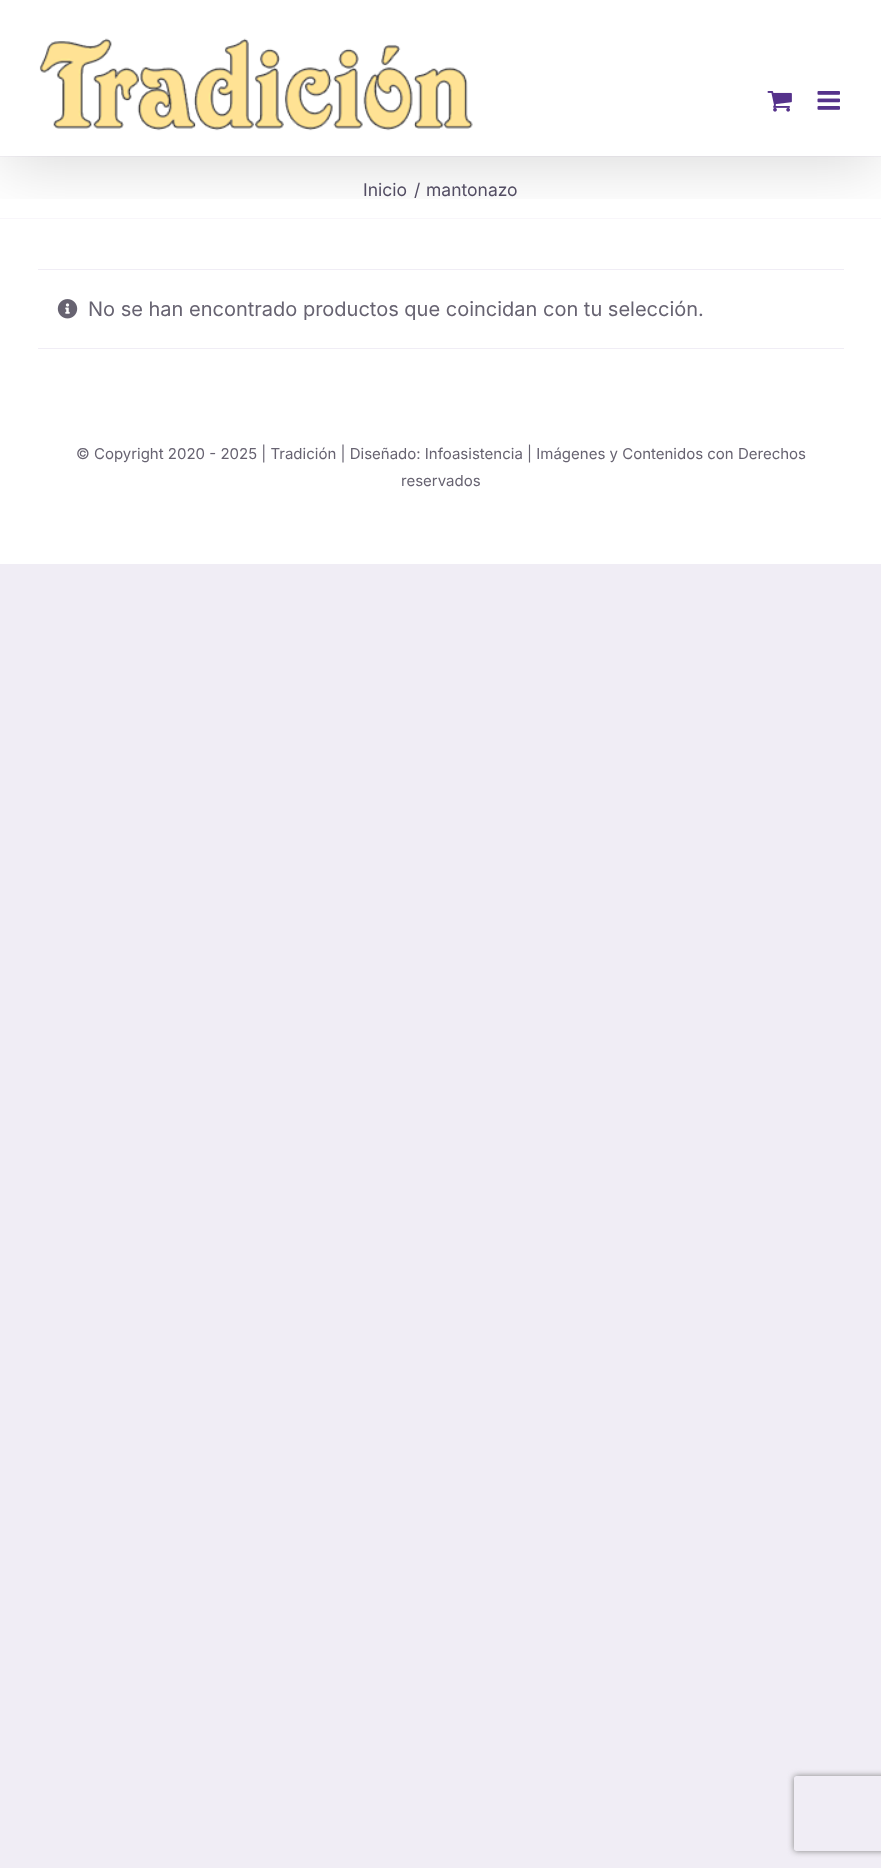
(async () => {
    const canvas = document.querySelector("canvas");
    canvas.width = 881;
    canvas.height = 1868;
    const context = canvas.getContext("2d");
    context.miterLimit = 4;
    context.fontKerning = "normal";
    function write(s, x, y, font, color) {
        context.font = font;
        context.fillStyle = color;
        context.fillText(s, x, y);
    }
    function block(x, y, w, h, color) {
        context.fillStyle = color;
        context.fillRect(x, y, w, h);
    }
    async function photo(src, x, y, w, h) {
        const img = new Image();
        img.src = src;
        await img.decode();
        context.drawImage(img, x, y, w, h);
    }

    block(0, 0, 881, 1868, "rgb(240, 237, 245)");
    block(0, 0, 881, 564, "rgb(255, 255, 255)");
    block(0, 156, 881, 1, "rgb(248, 246, 250)");
    block(0, 218, 881, 1, "rgb(248, 246, 250)");
    context.save();
    context.beginPath();
    context.rect(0, 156, 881, 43);
    context.clip();
    context.fillStyle = "rgba(0, 0, 0, 0.14)";
    context.filter = "blur(31px)";
    context.beginPath();
    context.rect(3, 15, 876, 151);
    context.fill();
    context.filter = "none";
    context.restore();
    await photo("media/1.png", 39, 38, 434, 93);
    await photo("media/2.png", 767, 91, 25, 21);
    await photo("media/3.png", 817, 91, 23, 19);
    write("Inicio", 363, 196, "17.5px Inter", "rgb(83, 77, 99)");
    write("/", 414, 196, "17.5px Inter", "rgb(83, 77, 99)");
    write("mantonazo", 426, 196, "17.5px Inter", "rgb(83, 77, 99)");
    block(38, 269, 806, 1, "rgb(240, 237, 245)");
    block(38, 348, 806, 1, "rgb(240, 237, 245)");
    await photo("media/4.png", 57, 299, 21, 20);
    write("No se han encontrado productos que coincidan con tu selección.", 88, 316, "20px Inter", "rgb(103, 99, 113)");
    write("© Copyright 2020 - 2025 | Tradición | Diseñado: Infoasistencia | Imágenes y Contenidos con Derechos", 76, 459, "15px Inter", "rgb(103, 99, 113)");
    write("reservados", 401, 486, "15px Inter", "rgb(103, 99, 113)");
    context.save();
    context.beginPath();
    context.moveTo(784, 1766);
    context.lineTo(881, 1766);
    context.lineTo(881, 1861);
    context.lineTo(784, 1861);
    context.closePath();
    context.moveTo(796.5, 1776);
    context.lineTo(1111.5, 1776);
    context.bezierCurveTo(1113, 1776, 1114, 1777, 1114, 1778.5);
    context.lineTo(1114, 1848.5);
    context.bezierCurveTo(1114, 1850, 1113, 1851, 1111.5, 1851);
    context.lineTo(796.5, 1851);
    context.bezierCurveTo(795, 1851, 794, 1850, 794, 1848.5);
    context.lineTo(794, 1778.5);
    context.bezierCurveTo(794, 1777, 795, 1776, 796.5, 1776);
    context.closePath();
    context.clip("evenodd");
    context.fillStyle = "rgb(128, 128, 128)";
    context.filter = "blur(3px)";
    context.beginPath();
    context.roundRect(794, 1776, 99, 75, 2.5);
    context.fill();
    context.filter = "none";
    context.restore();
})();
